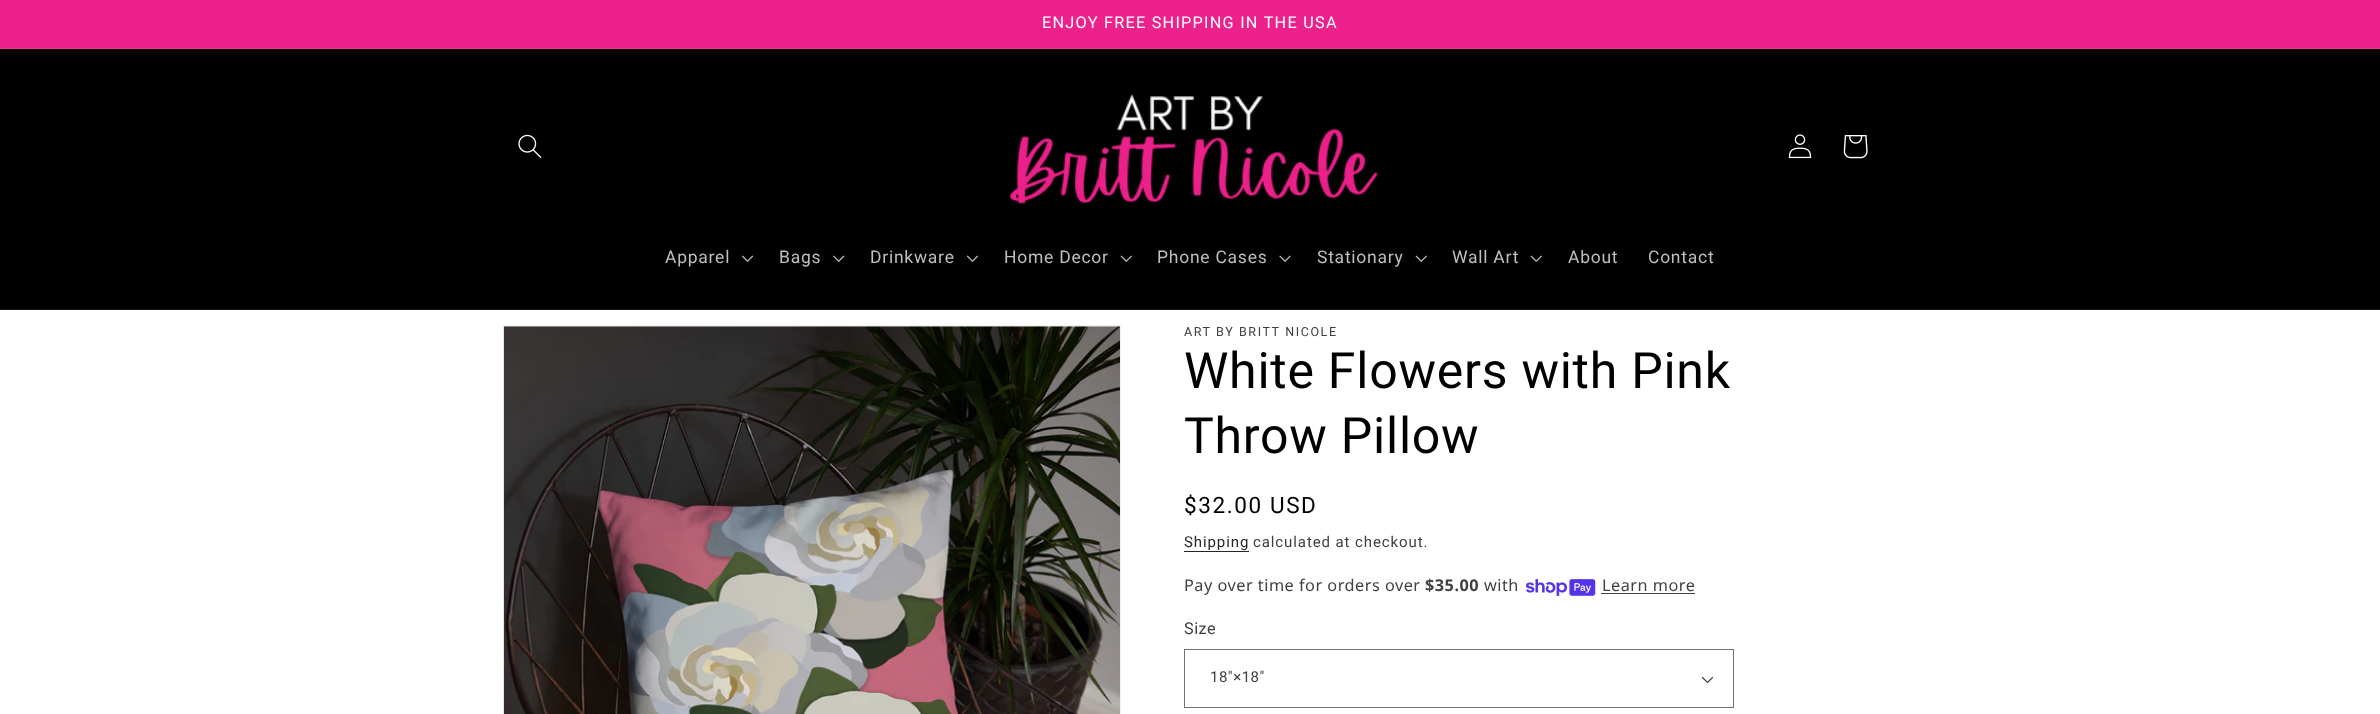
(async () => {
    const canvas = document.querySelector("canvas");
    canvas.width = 2380;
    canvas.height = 714;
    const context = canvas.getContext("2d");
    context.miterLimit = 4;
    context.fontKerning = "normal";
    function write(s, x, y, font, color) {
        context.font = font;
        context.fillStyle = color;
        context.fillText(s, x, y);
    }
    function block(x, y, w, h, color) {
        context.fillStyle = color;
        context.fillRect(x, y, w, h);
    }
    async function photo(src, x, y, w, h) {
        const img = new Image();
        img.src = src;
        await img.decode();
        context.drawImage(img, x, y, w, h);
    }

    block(0, 0, 2380, 714, "rgb(255, 255, 255)");
    block(0, 0, 2380, 48, "rgb(237, 33, 139)");
    block(0, 48, 2380, 1, "rgb(238, 51, 148)");
    context.letterSpacing = "1.25px";
    write("ENJOY FREE SHIPPING IN THE USA", 1042, 28, "16.25px Roboto", "rgb(255, 255, 255)");
    block(0, 49, 2380, 260, "rgb(0, 0, 0)");
    block(0, 309, 2380, 1, "rgb(20, 20, 20)");
    await photo("media/1.png", 518, 134, 24, 24);
    await photo("media/2.png", 1009, 94, 369, 110);
    await photo("media/3.png", 1788, 134, 24, 25);
    await photo("media/4.png", 1843, 135, 25, 24);
    context.letterSpacing = "0.75px";
    write("Apparel", 665, 263, "17.5px Roboto", "rgb(191, 191, 191)");
    await photo("media/5.png", 741, 255, 13, 7);
    write("Bags", 779, 263, "17.5px Roboto", "rgb(191, 191, 191)");
    await photo("media/6.png", 833, 255, 12, 7);
    write("Drinkware", 870, 263, "17.5px Roboto", "rgb(191, 191, 191)");
    await photo("media/5.png", 966, 255, 13, 7);
    write("Home Decor", 1004, 263, "17.5px Roboto", "rgb(191, 191, 191)");
    await photo("media/7.png", 1120, 255, 12, 7);
    write("Phone Cases", 1157, 263, "17.5px Roboto", "rgb(191, 191, 191)");
    await photo("media/8.png", 1279, 255, 12, 7);
    write("Stationary", 1317, 263, "17.5px Roboto", "rgb(191, 191, 191)");
    await photo("media/7.png", 1415, 255, 12, 7);
    write("Wall Art", 1452, 263, "17.5px Roboto", "rgb(191, 191, 191)");
    await photo("media/7.png", 1530, 255, 12, 7);
    write("About", 1568, 263, "17.5px Roboto", "rgb(191, 191, 191)");
    write("Contact", 1648, 263, "17.5px Roboto", "rgb(191, 191, 191)");
    context.strokeStyle = "rgb(242, 242, 242)";
    context.strokeRect(503.5, 325.5, 617, 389);
    await photo("media/9.png", 503, 326, 617, 388);
    context.letterSpacing = "1.6px";
    write("ART BY BRITT NICOLE", 1184, 336, "12.5px Roboto", "rgb(64, 64, 64)");
    context.letterSpacing = "0.75px";
    write("White Flowers with Pink", 1184, 388, "50px Roboto", "rgb(0, 0, 0)");
    write("Throw Pillow", 1184, 453, "50px Roboto", "rgb(0, 0, 0)");
    context.letterSpacing = "1.6px";
    write("$32.00 USD", 1184, 513, "22.5px Roboto", "rgb(0, 0, 0)");
    context.letterSpacing = "0.9px";
    write("Shipping", 1184, 547, "15px Roboto", "rgb(38, 38, 38)");
    block(1184, 551, 65, 1, "rgb(38, 38, 38)");
    write("calculated at checkout.", 1253, 547, "15px Roboto", "rgb(64, 64, 64)");
    context.letterSpacing = "0.5px";
    write("Pay over time for orders over", 1184, 591, "16.25px Noto Sans", "rgb(64, 64, 64)");
    write("$35.00", 1425, 591, "bold 16.25px Noto Sans", "rgb(64, 64, 64)");
    write("with", 1484, 591, "16.25px Noto Sans", "rgb(64, 64, 64)");
    await photo("media/10.png", 1526, 579, 70, 17);
    write("Learn more", 1602, 591, "16.25px Noto Sans", "rgb(64, 64, 64)");
    block(1601, 593, 94, 1, "rgb(64, 64, 64)");
    write("Size", 1184, 634, "16.25px Roboto", "rgb(64, 64, 64)");
    await photo("media/11.png", 1701, 676, 13, 8);
    context.strokeStyle = "rgb(115, 115, 115)";
    context.strokeRect(1184.5, 649.5, 549, 58);
    write("18″×18″", 1210, 682, "15px Roboto", "rgb(64, 64, 64)");
})();
